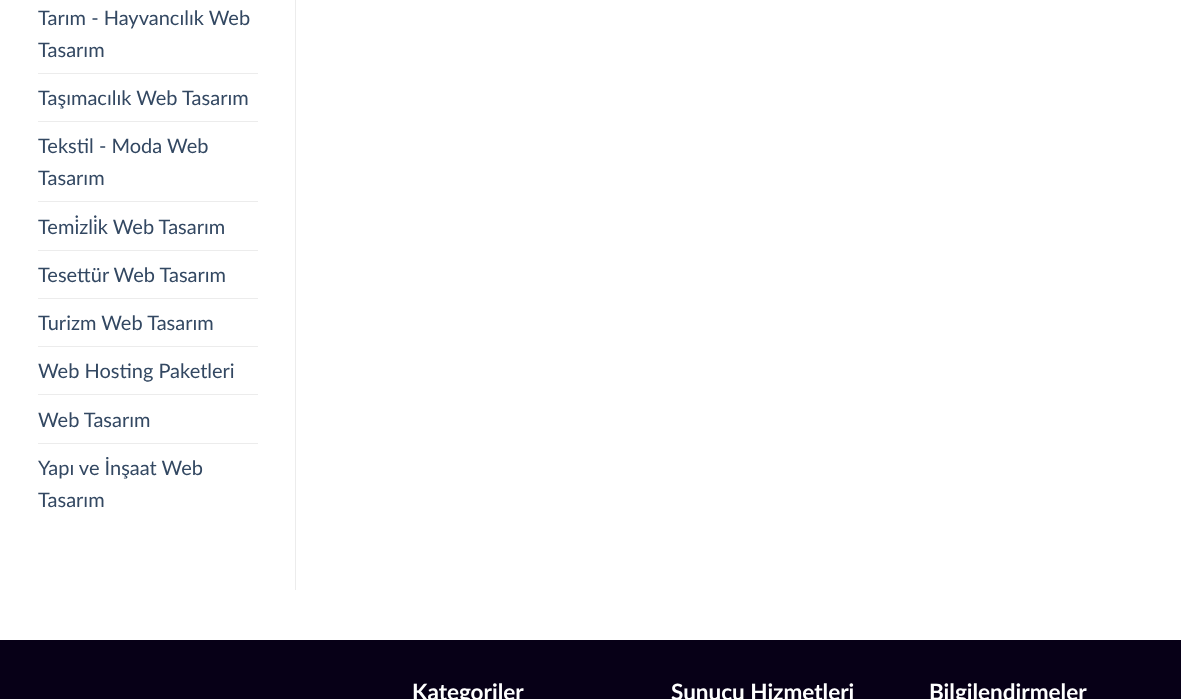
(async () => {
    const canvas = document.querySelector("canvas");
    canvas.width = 1181;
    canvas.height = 699;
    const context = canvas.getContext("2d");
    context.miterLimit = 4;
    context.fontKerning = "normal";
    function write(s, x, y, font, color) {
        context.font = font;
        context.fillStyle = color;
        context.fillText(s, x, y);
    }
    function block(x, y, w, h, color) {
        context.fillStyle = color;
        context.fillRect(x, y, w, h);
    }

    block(0, 0, 1181, 699, "rgb(255, 255, 255)");
    write("Tarım - Hayvancılık Web", 38, 25, "20px Lato", "rgb(51, 72, 98)");
    write("Tasarım", 38, 57, "20px Lato", "rgb(51, 72, 98)");
    block(38, 73, 220, 1, "rgb(236, 236, 236)");
    write("Taşımacılık Web Tasarım", 38, 105, "20px Lato", "rgb(51, 72, 98)");
    block(38, 121, 220, 1, "rgb(236, 236, 236)");
    write("Tekstil - Moda Web", 38, 153, "20px Lato", "rgb(51, 72, 98)");
    write("Tasarım", 38, 185, "20px Lato", "rgb(51, 72, 98)");
    block(38, 201, 220, 1, "rgb(236, 236, 236)");
    write("Temi̇zli̇k Web Tasarım", 38, 234, "20px Lato", "rgb(51, 72, 98)");
    block(38, 250, 220, 1, "rgb(236, 236, 236)");
    write("Tesettür Web Tasarım", 38, 282, "20px Lato", "rgb(51, 72, 98)");
    block(38, 298, 220, 1, "rgb(236, 236, 236)");
    write("Turizm Web Tasarım", 38, 330, "20px Lato", "rgb(51, 72, 98)");
    block(38, 346, 220, 1, "rgb(236, 236, 236)");
    write("Web Hosting Paketleri", 38, 378, "20px Lato", "rgb(51, 72, 98)");
    block(38, 394, 220, 1, "rgb(236, 236, 236)");
    write("Web Tasarım", 38, 427, "20px Lato", "rgb(51, 72, 98)");
    block(38, 443, 220, 1, "rgb(236, 236, 236)");
    write("Yapı ve İnşaat Web", 38, 475, "20px Lato", "rgb(51, 72, 98)");
    write("Tasarım", 38, 507, "20px Lato", "rgb(51, 72, 98)");
    block(295, 0, 1, 590, "rgb(236, 236, 236)");
    block(0, 640, 1181, 59, "rgb(7, 0, 23)");
    write("Kategoriler", 412, 700, "bold 22.5px Lato", "rgb(255, 255, 255)");
    write("Sunucu Hizmetleri", 671, 700, "bold 22.5px Lato", "rgb(255, 255, 255)");
    write("Bilgilendirmeler", 929, 700, "bold 22.5px Lato", "rgb(255, 255, 255)");
})();
